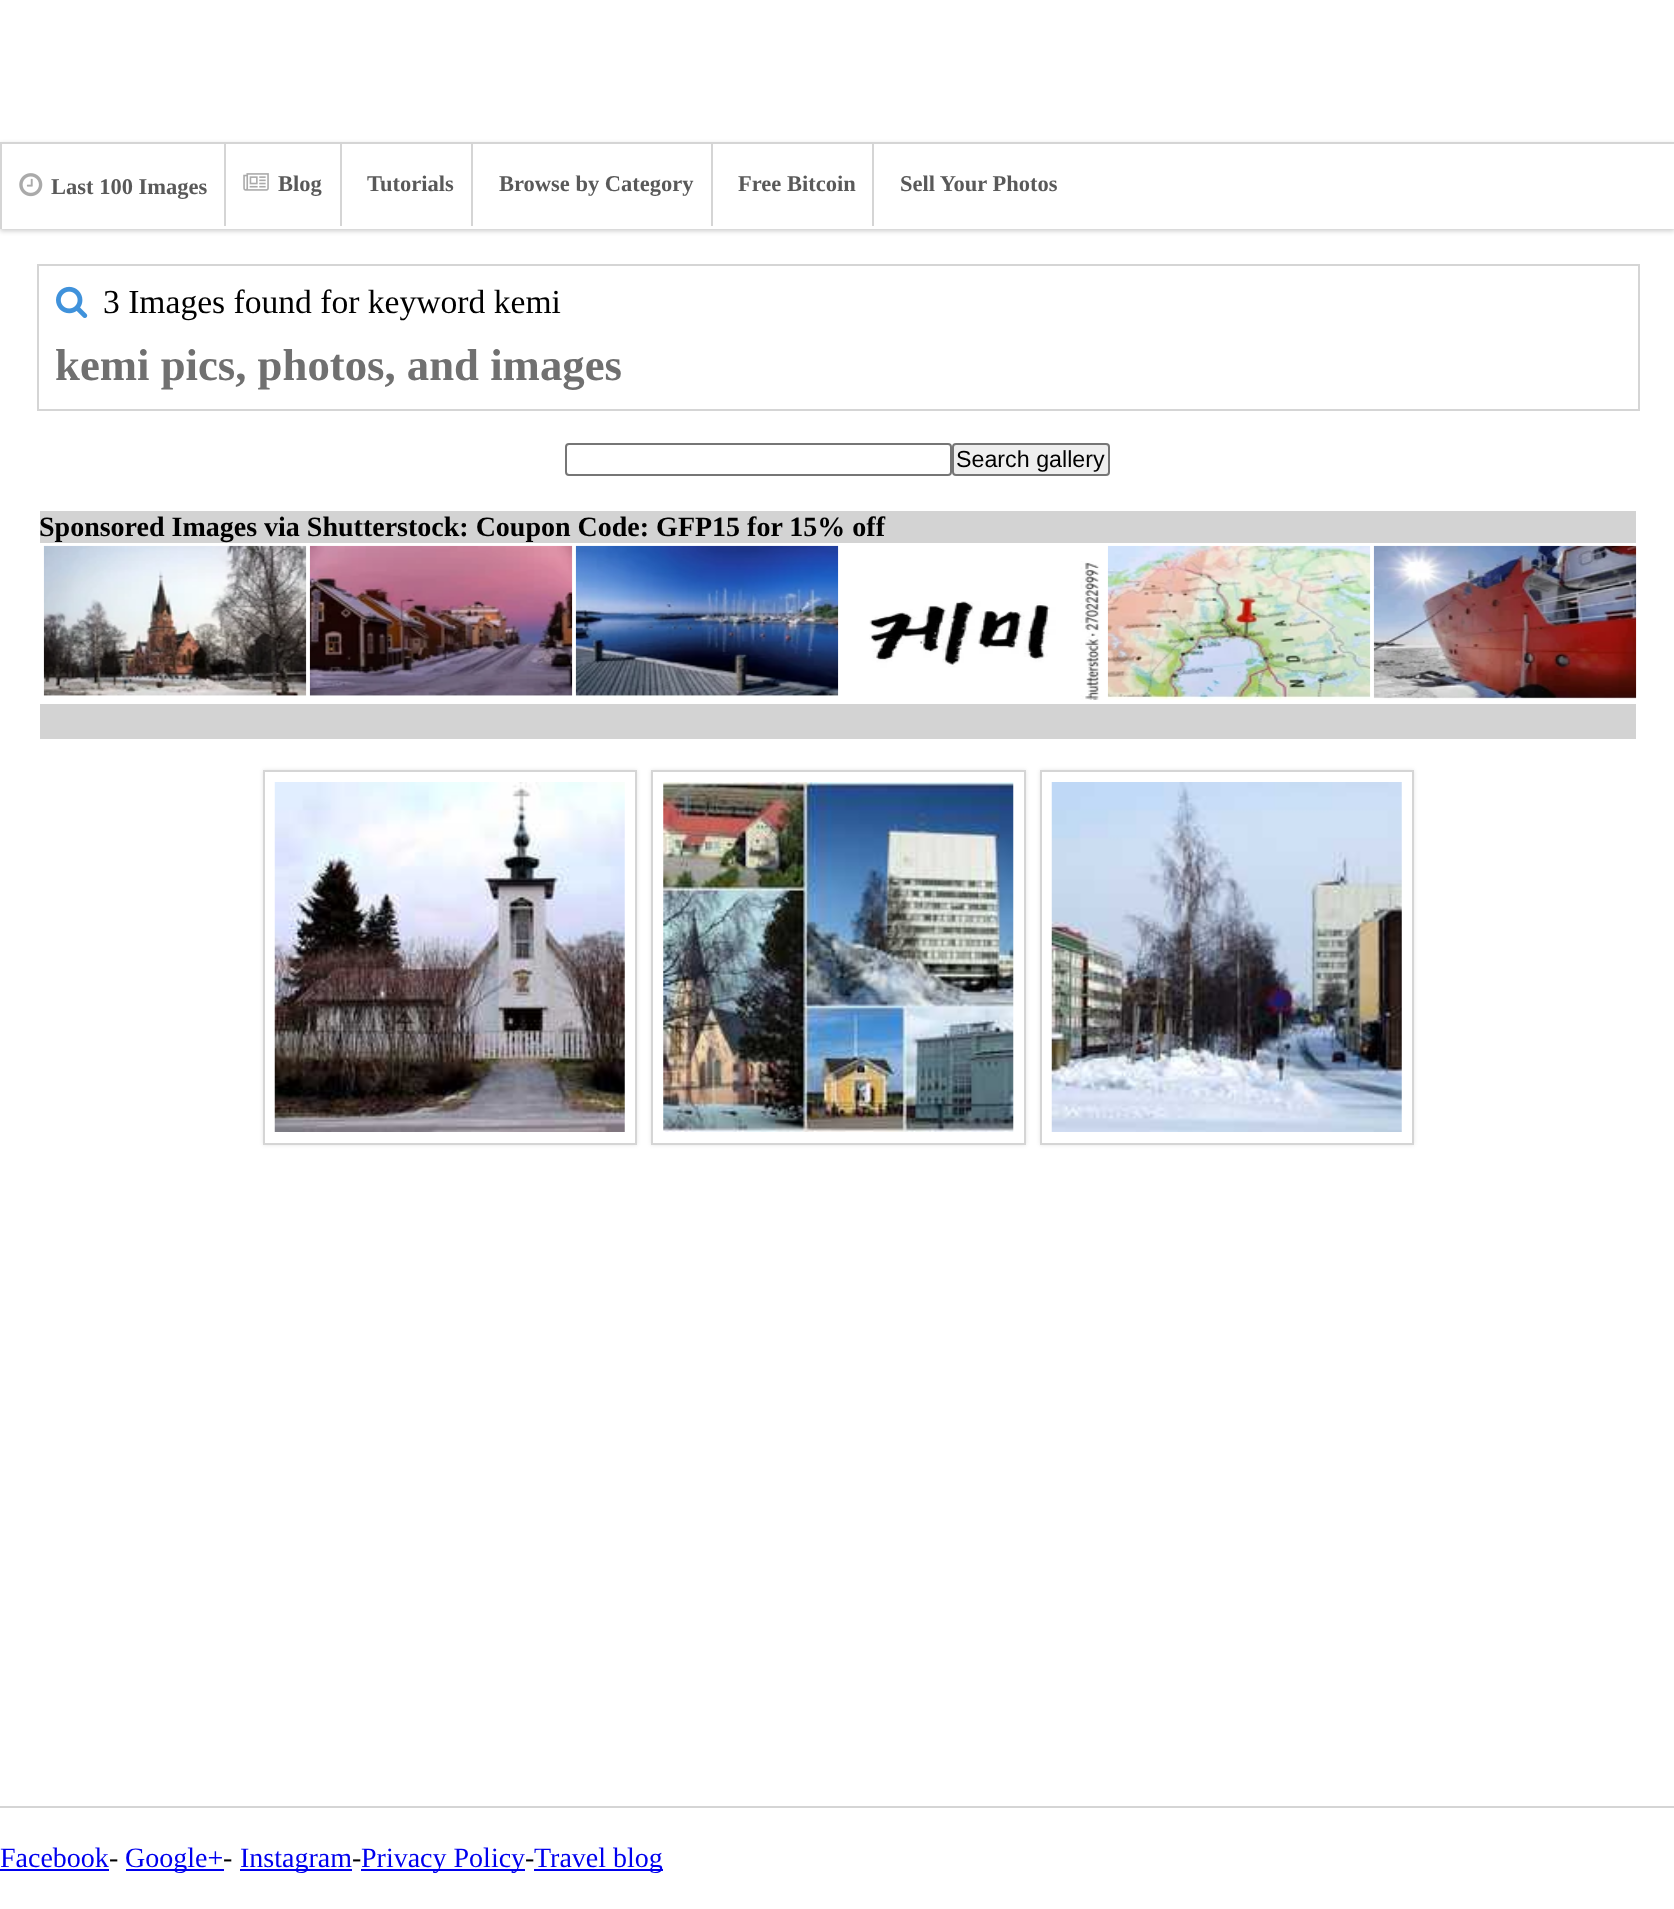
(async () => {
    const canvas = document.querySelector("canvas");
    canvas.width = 1674;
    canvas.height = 1909;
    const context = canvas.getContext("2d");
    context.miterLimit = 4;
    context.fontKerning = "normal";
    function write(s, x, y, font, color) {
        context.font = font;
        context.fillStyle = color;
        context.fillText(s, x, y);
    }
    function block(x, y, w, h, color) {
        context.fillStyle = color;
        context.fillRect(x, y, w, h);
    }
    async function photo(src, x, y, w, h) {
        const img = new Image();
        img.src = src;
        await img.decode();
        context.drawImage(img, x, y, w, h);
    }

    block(0, 0, 1674, 1909, "rgb(255, 255, 255)");
    context.save();
    context.beginPath();
    context.moveTo(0, 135);
    context.lineTo(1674, 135);
    context.lineTo(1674, 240);
    context.lineTo(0, 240);
    context.closePath();
    context.moveTo(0, 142);
    context.lineTo(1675, 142);
    context.lineTo(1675, 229);
    context.lineTo(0, 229);
    context.closePath();
    context.clip("evenodd");
    context.fillStyle = "rgba(0, 0, 0, 0.2)";
    context.filter = "blur(2.5px)";
    context.beginPath();
    context.rect(0, 144, 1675, 87);
    context.fill();
    context.filter = "none";
    context.restore();
    block(0, 142, 1674, 2, "rgb(213, 213, 213)");
    block(0, 144, 2, 85, "rgb(213, 213, 213)");
    await photo("media/1.png", 19, 173, 24, 24);
    write("Last 100 Images", 51, 194, "bold 22.5px Liberation Serif", "rgb(89, 89, 89)");
    block(224, 144, 2, 82, "rgb(213, 213, 213)");
    await photo("media/2.png", 243, 173, 26, 18);
    write("Blog", 278, 191, "bold 22.5px Liberation Serif", "rgb(89, 89, 89)");
    block(340, 144, 2, 82, "rgb(213, 213, 213)");
    write("Tutorials", 367, 191, "bold 22.5px Liberation Serif", "rgb(89, 89, 89)");
    block(471, 144, 2, 82, "rgb(213, 213, 213)");
    write("Browse by Category", 499, 191, "bold 22.5px Liberation Serif", "rgb(89, 89, 89)");
    block(711, 144, 2, 82, "rgb(213, 213, 213)");
    write("Free Bitcoin", 738, 191, "bold 22.5px Liberation Serif", "rgb(89, 89, 89)");
    block(872, 144, 2, 82, "rgb(213, 213, 213)");
    write("Sell Your Photos", 900, 191, "bold 22.5px Liberation Serif", "rgb(89, 89, 89)");
    context.strokeStyle = "rgb(213, 213, 213)";
    context.lineWidth = 2;
    context.strokeRect(38, 265, 1601, 145);
    await photo("media/3.png", 56, 286, 32, 32);
    write("3 Images found for keyword kemi", 103, 313, "33.6px Liberation Serif", "rgb(0, 0, 0)");
    write("kemi pics, photos, and images", 55, 380, "bold 44.75px Liberation Serif", "rgb(112, 112, 112)");
    context.beginPath();
    context.roundRect(566, 444, 385, 31, 3);
    context.strokeStyle = "rgb(118, 118, 118)";
    context.stroke();
    context.fillStyle = "rgb(239, 239, 239)";
    context.beginPath();
    context.roundRect(953, 444, 156, 31, 3);
    context.fill();
    context.stroke();
    write("Search gallery", 956, 467, "23.25px Liberation Sans", "rgb(0, 0, 0)");
    block(40, 511, 1596, 32, "rgb(211, 211, 211)");
    write("Sponsored Images via Shutterstock: Coupon Code: GFP15 for 15% off", 39, 536, "bold 28px Liberation Serif", "rgb(0, 0, 0)");
    await photo("media/4.png", 43, 545, 264, 151);
    await photo("media/5.png", 309, 545, 264, 151);
    await photo("media/6.png", 575, 545, 264, 152);
    await photo("media/7.png", 869, 561, 231, 139);
    await photo("media/8.png", 1107, 545, 264, 155);
    await photo("media/9.png", 1373, 545, 264, 155);
    block(40, 704, 1596, 35, "rgb(211, 211, 211)");
    context.fillStyle = "rgba(0, 0, 0, 0.1)";
    context.filter = "blur(2px)";
    context.beginPath();
    context.rect(263, 770, 374, 375);
    context.fill();
    context.filter = "none";
    context.fillStyle = "rgb(255, 255, 255)";
    context.beginPath();
    context.rect(264, 771, 372, 373);
    context.fill();
    context.strokeStyle = "rgb(213, 213, 213)";
    context.stroke();
    await photo("media/10.png", 274, 782, 351, 350);
    context.fillStyle = "rgba(0, 0, 0, 0.1)";
    context.filter = "blur(2px)";
    context.beginPath();
    context.rect(651, 770, 375, 375);
    context.fill();
    context.filter = "none";
    context.fillStyle = "rgb(255, 255, 255)";
    context.beginPath();
    context.rect(652, 771, 373, 373);
    context.fill();
    context.stroke();
    await photo("media/11.png", 663, 782, 351, 350);
    context.fillStyle = "rgba(0, 0, 0, 0.1)";
    context.filter = "blur(2px)";
    context.beginPath();
    context.rect(1040, 770, 374, 375);
    context.fill();
    context.filter = "none";
    context.fillStyle = "rgb(255, 255, 255)";
    context.beginPath();
    context.rect(1041, 771, 372, 373);
    context.fill();
    context.stroke();
    await photo("media/12.png", 1051, 782, 351, 350);
    block(0, 1806, 1674, 2, "rgb(213, 213, 213)");
    write("Facebook", 0, 1867, "28px Liberation Serif", "rgb(0, 0, 238)");
    block(0, 1869, 109, 2, "rgb(0, 0, 238)");
    write("-", 109, 1867, "28px Liberation Serif", "rgb(0, 0, 0)");
    block(126, 1869, 98, 2, "rgb(0, 0, 238)");
    write("Google+", 125, 1867, "28px Liberation Serif", "rgb(0, 0, 238)");
    write("-", 223, 1867, "28px Liberation Serif", "rgb(0, 0, 0)");
    block(240, 1869, 112, 2, "rgb(0, 0, 238)");
    write("Instagram", 240, 1867, "28px Liberation Serif", "rgb(0, 0, 238)");
    write("-", 352, 1867, "28px Liberation Serif", "rgb(0, 0, 0)");
    block(361, 1869, 164, 2, "rgb(0, 0, 238)");
    write("Privacy Policy", 361, 1867, "28px Liberation Serif", "rgb(0, 0, 238)");
    write("-", 525, 1867, "28px Liberation Serif", "rgb(0, 0, 0)");
    block(534, 1869, 129, 2, "rgb(0, 0, 238)");
    write("Travel blog", 534, 1867, "28px Liberation Serif", "rgb(0, 0, 238)");
})();
